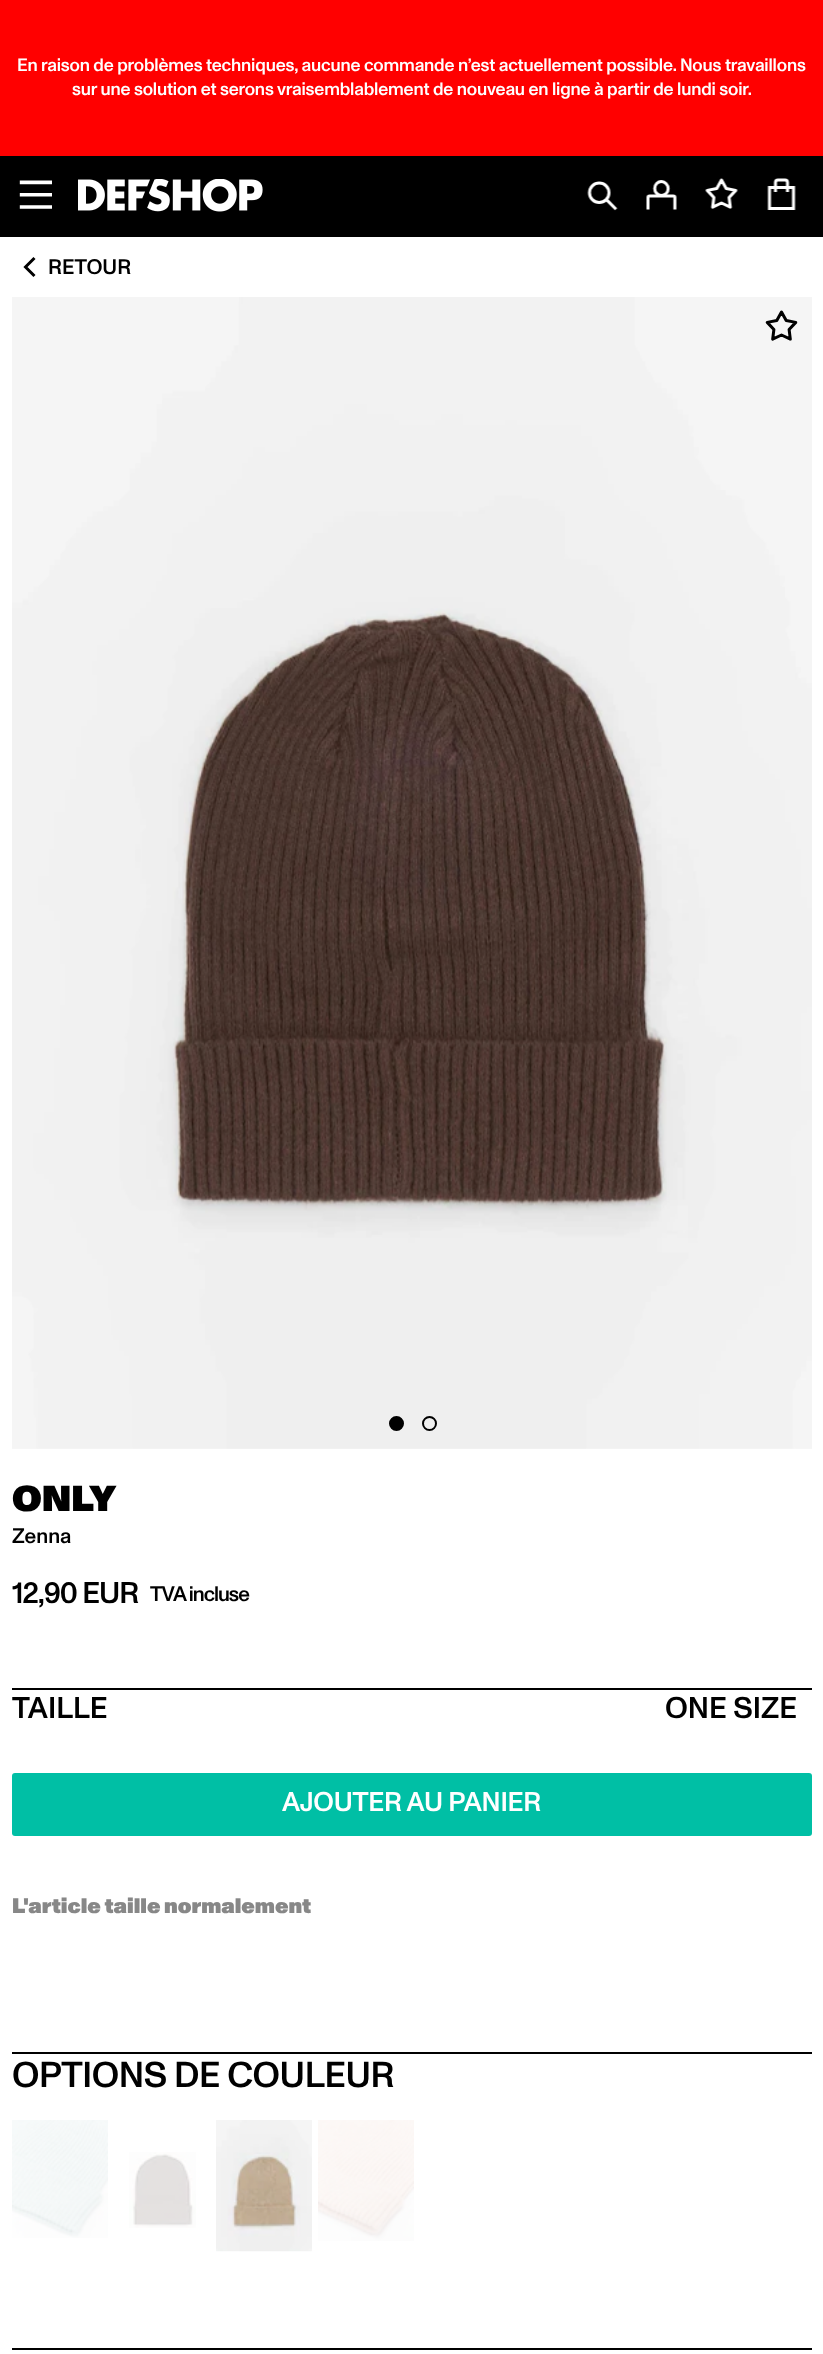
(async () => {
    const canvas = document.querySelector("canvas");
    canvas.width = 823;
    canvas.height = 2354;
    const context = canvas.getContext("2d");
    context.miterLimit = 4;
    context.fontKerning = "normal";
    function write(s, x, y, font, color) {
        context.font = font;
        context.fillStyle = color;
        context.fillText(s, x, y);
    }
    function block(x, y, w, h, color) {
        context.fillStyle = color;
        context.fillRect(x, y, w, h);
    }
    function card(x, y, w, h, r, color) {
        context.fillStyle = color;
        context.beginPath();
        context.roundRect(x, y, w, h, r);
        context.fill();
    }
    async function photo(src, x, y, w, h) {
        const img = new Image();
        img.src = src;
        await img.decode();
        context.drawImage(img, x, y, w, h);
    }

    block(0, 0, 823, 2354, "rgb(255, 255, 255)");
    block(0, 0, 823, 156, "rgb(255, 0, 0)");
    context.letterSpacing = "-0.18px";
    write("En raison de problèmes techniques, aucune commande n’est actuellement possible. Nous travaillons", 17, 71, "500 18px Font", "rgb(255, 255, 255)");
    write("sur une solution et serons vraisemblablement de nouveau en ligne à partir de lundi soir.", 72, 95, "500 18px Font", "rgb(255, 255, 255)");
    block(0, 156, 823, 81, "rgb(0, 0, 0)");
    await photo("media/1.png", 19, 180, 33, 29);
    await photo("media/2.png", 78, 179, 185, 33);
    await photo("media/3.png", 587, 181, 31, 30);
    await photo("media/4.png", 646, 180, 31, 30);
    await photo("media/5.png", 705, 178, 33, 31);
    await photo("media/6.png", 767, 178, 29, 32);
    await photo("media/7.png", 23, 257, 13, 20);
    context.letterSpacing = "0px";
    write("RETOUR", 48, 274, "500 21px Font", "rgb(0, 0, 0)");
    await photo("media/8.png", 12, 297, 800, 1152);
    context.beginPath();
    context.arc(396.5, 1423.5, 6.5, 0, Math.PI * 2);
    context.fill();
    context.strokeStyle = "rgb(0, 0, 0)";
    context.lineWidth = 2;
    context.stroke();
    context.beginPath();
    context.arc(429.5, 1423.5, 6.5, 0, Math.PI * 2);
    context.stroke();
    await photo("media/9.png", 765, 310, 33, 31);
    write("ONLY", 12, 1511, "900 36px Font", "rgb(0, 0, 0)");
    write("Zenna", 12, 1543, "500 21px Font", "rgb(0, 0, 0)");
    context.letterSpacing = "-1px";
    write("12,90 EUR", 12, 1603, "500 30px Font", "rgb(0, 0, 0)");
    write("TVA incluse", 150, 1601, "500 21px Font", "rgb(0, 0, 0)");
    block(12, 1688, 800, 2, "rgb(0, 0, 0)");
    context.letterSpacing = "0px";
    write("TAILLE", 12, 1718, "500 30px Font", "rgb(0, 0, 0)");
    write("ONE SIZE", 665, 1718, "500 30px Font", "rgb(0, 0, 0)");
    card(12, 1773, 800, 63, 3, "rgb(0, 191, 165)");
    context.letterSpacing = "-0.25px";
    write("AJOUTER AU PANIER", 282, 1811, "500 27px Font", "rgb(255, 255, 255)");
    context.letterSpacing = "0px";
    write("L'article taille normalement", 12, 1913, "900 21px Font", "rgb(135, 135, 135)");
    block(12, 2052, 800, 2, "rgb(0, 0, 0)");
    context.letterSpacing = "-0.4px";
    write("OPTIONS DE COULEUR", 12, 2087, "500 36px Font", "rgb(0, 0, 0)");
    await photo("media/10.png", 12, 2120, 96, 118);
    await photo("media/11.png", 129, 2152, 67, 76);
    await photo("media/12.png", 216, 2120, 96, 132);
    await photo("media/13.png", 318, 2120, 96, 121);
    block(12, 2348, 800, 2, "rgb(0, 0, 0)");
})();
